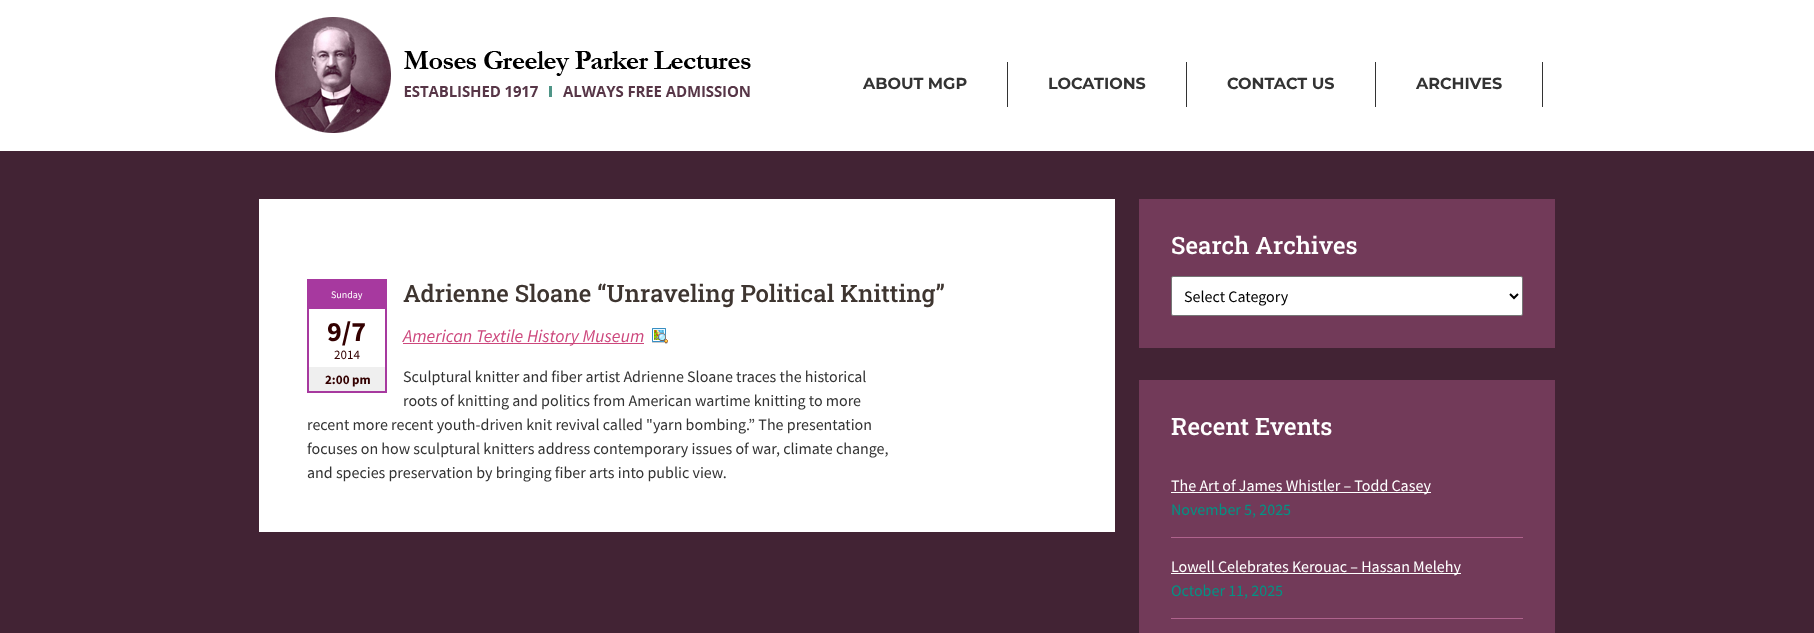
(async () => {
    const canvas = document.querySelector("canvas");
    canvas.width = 1814;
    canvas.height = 633;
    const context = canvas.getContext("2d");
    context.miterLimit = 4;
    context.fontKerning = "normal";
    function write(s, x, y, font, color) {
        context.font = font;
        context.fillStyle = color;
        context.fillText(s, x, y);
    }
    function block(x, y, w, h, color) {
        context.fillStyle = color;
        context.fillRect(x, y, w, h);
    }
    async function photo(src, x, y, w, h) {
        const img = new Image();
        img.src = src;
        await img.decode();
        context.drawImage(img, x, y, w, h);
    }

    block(0, 0, 1814, 633, "rgb(255, 255, 255)");
    await photo("media/1.png", 275, 17, 476, 116);
    block(1007, 62, 1, 45, "rgb(51, 51, 51)");
    write("ABOUT MGP", 863, 89, "bold 16px Montserrat", "rgb(51, 51, 51)");
    block(1186, 62, 1, 45, "rgb(51, 51, 51)");
    write("LOCATIONS", 1048, 89, "bold 16px Montserrat", "rgb(51, 51, 51)");
    block(1375, 62, 1, 45, "rgb(51, 51, 51)");
    write("CONTACT US", 1227, 89, "bold 16px Montserrat", "rgb(51, 51, 51)");
    block(1542, 62, 1, 45, "rgb(51, 51, 51)");
    write("ARCHIVES", 1416, 89, "bold 16px Montserrat", "rgb(51, 51, 51)");
    block(0, 151, 1814, 482, "rgb(66, 35, 52)");
    block(259, 199, 856, 333, "rgb(255, 255, 255)");
    context.strokeStyle = "rgb(167, 57, 159)";
    context.lineWidth = 2;
    context.strokeRect(308, 280, 78, 112);
    block(309, 281, 76, 28, "rgb(167, 57, 159)");
    write("Sunday", 331, 298, "10px Source Sans Pro", "rgb(255, 255, 255)");
    write("9/7", 327, 341, "bold 28px Source Sans Pro", "rgb(51, 0, 0)");
    write("2014", 334, 359, "13px Source Sans Pro", "rgb(51, 0, 0)");
    block(309, 367, 76, 24, "rgb(239, 239, 239)");
    write("2:00 pm", 325, 384, "bold 13px Source Sans Pro", "rgb(51, 0, 0)");
    write("Adrienne Sloane “Unraveling Political Knitting”", 403, 302, "500 24px Roboto Slab", "rgb(62, 53, 48)");
    await photo("media/2.png", 652, 328, 16, 16);
    block(403, 343, 241, 1, "rgb(205, 72, 125)");
    write("American Textile History Museum", 403, 342, "italic 18px Source Sans Pro", "rgb(205, 72, 125)");
    write("Sculptural knitter and fiber artist Adrienne Sloane traces the historical", 403, 382, "16px Source Sans Pro", "rgb(51, 51, 51)");
    write("roots of knitting and politics from American wartime knitting to more", 403, 406, "16px Source Sans Pro", "rgb(51, 51, 51)");
    write("recent more recent youth-driven knit revival called \"yarn bombing.” The presentation", 307, 430, "16px Source Sans Pro", "rgb(51, 51, 51)");
    write("focuses on how sculptural knitters address contemporary issues of war, climate change,", 307, 454, "16px Source Sans Pro", "rgb(51, 51, 51)");
    write("and species preservation by bringing fiber arts into public view.", 307, 478, "16px Source Sans Pro", "rgb(51, 51, 51)");
    block(1139, 199, 416, 149, "rgb(114, 58, 89)");
    write("Search Archives", 1171, 254, "500 24px Roboto Slab", "rgb(255, 255, 255)");
    context.beginPath();
    context.roundRect(1171.5, 276.5, 351, 39, 1.5);
    context.fill();
    context.strokeStyle = "rgb(118, 118, 118)";
    context.lineWidth = 1;
    context.stroke();
    context.beginPath();
    context.moveTo(1510, 294);
    context.lineTo(1514, 298);
    context.lineTo(1518, 294);
    context.strokeStyle = "rgb(0, 0, 0)";
    context.lineWidth = 2;
    context.stroke();
    write("Select Category", 1184, 302, "16px Source Sans Pro", "rgb(0, 0, 0)");
    block(1139, 380, 416, 253, "rgb(114, 58, 89)");
    write("Recent Events", 1171, 435, "500 24px Roboto Slab", "rgb(255, 255, 255)");
    block(1171, 537, 352, 1, "rgb(175, 99, 141)");
    block(1171, 492, 260, 1, "rgb(255, 255, 255)");
    write("The Art of James Whistler – Todd Casey", 1171, 491, "16px Source Sans Pro", "rgb(255, 255, 255)");
    write("November 5, 2025", 1171, 515, "16px Source Sans Pro", "rgb(2, 147, 132)");
    block(1171, 618, 352, 1, "rgb(175, 99, 141)");
    block(1171, 573, 290, 1, "rgb(255, 255, 255)");
    write("Lowell Celebrates Kerouac – Hassan Melehy", 1171, 572, "16px Source Sans Pro", "rgb(255, 255, 255)");
    write("October 11, 2025", 1171, 596, "16px Source Sans Pro", "rgb(2, 147, 132)");
})();
